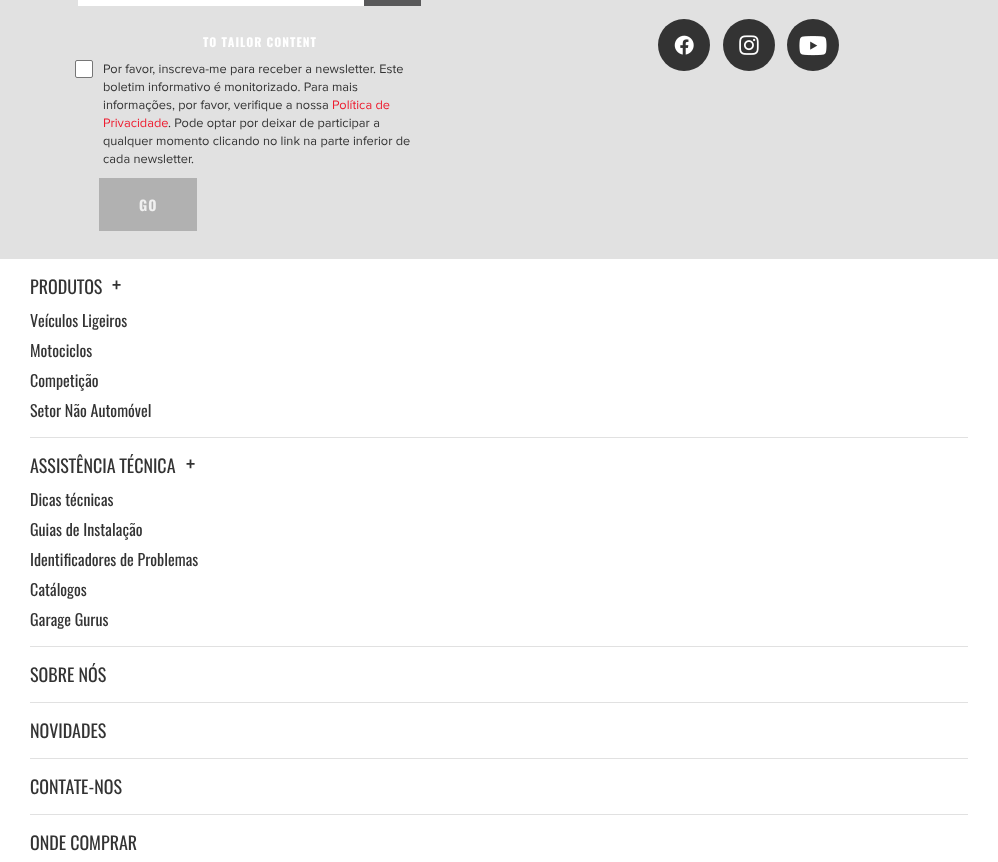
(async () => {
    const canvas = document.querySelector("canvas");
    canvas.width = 998;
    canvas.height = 862;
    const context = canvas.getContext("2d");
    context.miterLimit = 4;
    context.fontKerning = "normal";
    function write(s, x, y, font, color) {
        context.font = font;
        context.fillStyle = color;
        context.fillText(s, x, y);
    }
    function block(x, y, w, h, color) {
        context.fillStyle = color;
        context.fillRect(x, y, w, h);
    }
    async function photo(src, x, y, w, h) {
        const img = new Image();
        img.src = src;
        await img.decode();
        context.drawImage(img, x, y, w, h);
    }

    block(0, 0, 998, 862, "rgb(255, 255, 255)");
    block(0, 0, 998, 259, "rgb(225, 225, 225)");
    block(78, 0, 286, 6, "rgb(255, 255, 255)");
    block(364, 0, 57, 6, "rgb(89, 89, 90)");
    context.letterSpacing = "1px";
    write("TO TAILOR CONTENT", 203, 47, "bold 12px Oswald", "rgb(255, 255, 255)");
    context.beginPath();
    context.roundRect(75.5, 60.5, 17, 17, 1.5);
    context.fill();
    context.strokeStyle = "rgb(118, 118, 118)";
    context.stroke();
    context.letterSpacing = "0px";
    write("Por favor, inscreva-me para receber a newsletter. Este", 103, 73, "12.8px Proxima Nova", "rgb(51, 51, 51)");
    write("boletim informativo é monitorizado. Para mais", 103, 91, "12.8px Proxima Nova", "rgb(51, 51, 51)");
    write("informações, por favor, verifique a nossa", 103, 109, "12.8px Proxima Nova", "rgb(51, 51, 51)");
    write("Política de", 332, 109, "12.8px Proxima Nova", "rgb(238, 27, 46)");
    write("Privacidade", 103, 127, "12.8px Proxima Nova", "rgb(238, 27, 46)");
    write(". Pode optar por deixar de participar a", 168, 127, "12.8px Proxima Nova", "rgb(51, 51, 51)");
    write("qualquer momento clicando no link na parte inferior de", 103, 145, "12.8px Proxima Nova", "rgb(51, 51, 51)");
    write("cada newsletter.", 103, 163, "12.8px Proxima Nova", "rgb(51, 51, 51)");
    block(99, 178, 98, 53, "rgb(177, 177, 177)");
    context.letterSpacing = "1px";
    write("GO", 139, 211, "bold 14px Oswald", "rgb(240, 240, 240)");
    context.fillStyle = "rgb(51, 51, 51)";
    context.beginPath();
    context.arc(684, 45, 26, 0, Math.PI * 2);
    context.fill();
    await photo("media/1.png", 674, 35, 20, 20);
    context.beginPath();
    context.arc(749, 45, 26, 0, Math.PI * 2);
    context.fill();
    await photo("media/2.png", 739, 35, 20, 20);
    context.beginPath();
    context.arc(813, 45, 26, 0, Math.PI * 2);
    context.fill();
    await photo("media/3.png", 799, 36, 28, 20);
    block(30, 437, 938, 1, "rgb(225, 225, 225)");
    context.letterSpacing = "0px";
    write("PRODUTOS", 30, 294, "18px Oswald", "rgb(51, 51, 51)");
    write("+", 112, 294, "22px Oswald", "rgb(51, 51, 51)");
    write("Veículos Ligeiros", 30, 327, "16px Oswald", "rgb(51, 51, 51)");
    write("Motociclos", 30, 357, "16px Oswald", "rgb(51, 51, 51)");
    write("Competição", 30, 387, "16px Oswald", "rgb(51, 51, 51)");
    write("Setor Não Automóvel", 30, 417, "16px Oswald", "rgb(51, 51, 51)");
    block(30, 646, 938, 1, "rgb(225, 225, 225)");
    write("ASSISTÊNCIA TÉCNICA", 30, 473, "18px Oswald", "rgb(51, 51, 51)");
    write("+", 186, 473, "22px Oswald", "rgb(51, 51, 51)");
    write("Dicas técnicas", 30, 506, "16px Oswald", "rgb(51, 51, 51)");
    write("Guias de Instalação", 30, 536, "16px Oswald", "rgb(51, 51, 51)");
    write("Identificadores de Problemas", 30, 566, "16px Oswald", "rgb(51, 51, 51)");
    write("Catálogos", 30, 596, "16px Oswald", "rgb(51, 51, 51)");
    write("Garage Gurus", 30, 626, "16px Oswald", "rgb(51, 51, 51)");
    block(30, 702, 938, 1, "rgb(225, 225, 225)");
    write("SOBRE NÓS", 30, 682, "18px Oswald", "rgb(51, 51, 51)");
    block(30, 758, 938, 1, "rgb(225, 225, 225)");
    write("NOVIDADES", 30, 738, "18px Oswald", "rgb(51, 51, 51)");
    block(30, 814, 938, 1, "rgb(225, 225, 225)");
    write("CONTATE-NOS", 30, 794, "18px Oswald", "rgb(51, 51, 51)");
    write("ONDE COMPRAR", 30, 850, "18px Oswald", "rgb(51, 51, 51)");
})();
